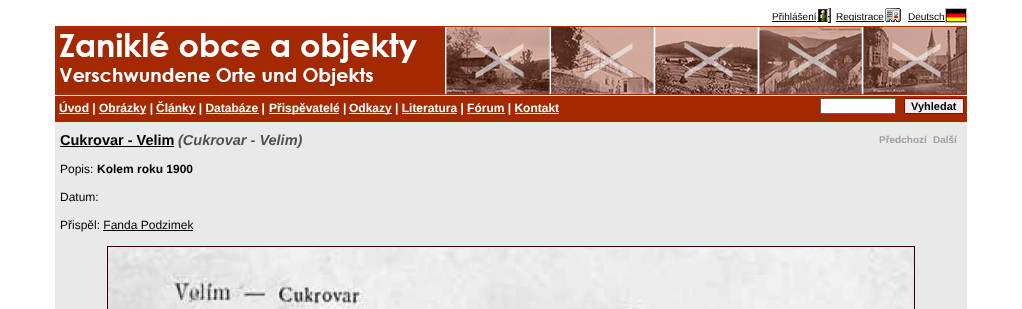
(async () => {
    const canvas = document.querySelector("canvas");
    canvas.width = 1022;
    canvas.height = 309;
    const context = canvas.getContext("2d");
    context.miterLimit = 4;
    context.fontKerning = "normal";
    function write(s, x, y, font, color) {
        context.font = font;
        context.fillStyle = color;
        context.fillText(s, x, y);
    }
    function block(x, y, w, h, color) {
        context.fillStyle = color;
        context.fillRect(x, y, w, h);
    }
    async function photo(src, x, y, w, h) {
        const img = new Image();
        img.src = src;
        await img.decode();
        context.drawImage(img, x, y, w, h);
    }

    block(0, 0, 1022, 309, "rgb(255, 255, 255)");
    block(55, 95, 912, 214, "rgb(233, 233, 233)");
    write("Přihlášení", 772, 20, "10px Liberation Sans", "rgb(0, 0, 0)");
    block(772, 21, 44, 1, "rgb(0, 0, 0)");
    await photo("media/1.png", 817, 8, 14, 15);
    block(836, 21, 48, 1, "rgb(0, 0, 0)");
    write("Registrace", 836, 20, "10px Liberation Sans", "rgb(0, 0, 0)");
    await photo("media/2.png", 885, 8, 16, 14);
    write("Deutsch", 908, 20, "10px Liberation Sans", "rgb(0, 0, 0)");
    block(908, 21, 37, 1, "rgb(0, 0, 0)");
    await photo("media/3.png", 945, 8, 22, 15);
    await photo("media/4.png", 56, 27, 910, 67);
    context.strokeStyle = "rgb(164, 41, 0)";
    context.strokeRect(55.5, 26.5, 911, 68);
    block(55, 96, 912, 26, "rgb(164, 41, 0)");
    block(59, 113, 30, 1, "rgb(255, 255, 255)");
    write("Úvod |", 59, 112, "bold 12px Liberation Sans", "rgb(255, 255, 255)");
    block(99, 113, 47, 1, "rgb(255, 255, 255)");
    write("Obrázky |", 99, 112, "bold 12px Liberation Sans", "rgb(255, 255, 255)");
    block(156, 113, 40, 1, "rgb(255, 255, 255)");
    write("Články | Databáze |", 156, 112, "bold 12px Liberation Sans", "rgb(255, 255, 255)");
    block(269, 113, 70, 1, "rgb(255, 255, 255)");
    write("Přispěvatelé |", 269, 112, "bold 12px Liberation Sans", "rgb(255, 255, 255)");
    block(349, 113, 43, 1, "rgb(255, 255, 255)");
    write("Odkazy | Literatura | Fórum | Kontakt", 349, 112, "bold 12px Liberation Sans", "rgb(255, 255, 255)");
    block(206, 113, 53, 1, "rgb(255, 255, 255)");
    block(402, 113, 55, 1, "rgb(255, 255, 255)");
    block(467, 113, 38, 1, "rgb(255, 255, 255)");
    block(515, 113, 44, 1, "rgb(255, 255, 255)");
    context.beginPath();
    context.rect(820.5, 98.5, 75, 15);
    context.fill();
    context.strokeStyle = "rgb(96, 96, 96)";
    context.stroke();
    context.fillStyle = "rgb(239, 239, 239)";
    context.beginPath();
    context.rect(904.5, 98.5, 59, 15);
    context.fill();
    context.strokeStyle = "rgb(160, 0, 0)";
    context.stroke();
    write("Vyhledat", 911, 110, "bold 11px Liberation Sans", "rgb(0, 0, 0)");
    write("Cukrovar - Velim", 60, 145, "bold 14.5px Liberation Sans", "rgb(0, 0, 0)");
    block(60, 146, 114, 1, "rgb(0, 0, 0)");
    write("(Cukrovar - Velim)", 178, 145, "italic bold 14.5px Liberation Sans", "rgb(80, 80, 80)");
    write("Předchozí", 879, 143, "bold 10px Liberation Sans", "rgb(160, 160, 160)");
    write("Další", 933, 143, "bold 10px Liberation Sans", "rgb(160, 160, 160)");
    write("Popis:", 60, 173, "12px Liberation Sans", "rgb(0, 0, 0)");
    write("Kolem roku 1900", 97, 173, "bold 12px Liberation Sans", "rgb(0, 0, 0)");
    write("Datum:", 60, 201, "12px Liberation Sans", "rgb(0, 0, 0)");
    write("Přispěl: Fanda Podzimek", 60, 229, "12px Liberation Sans", "rgb(0, 0, 0)");
    block(103, 230, 90, 1, "rgb(0, 0, 0)");
    context.strokeStyle = "rgb(51, 0, 0)";
    context.strokeRect(107.5, 246.5, 807, 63);
    await photo("media/5.png", 108, 247, 806, 62);
})();
